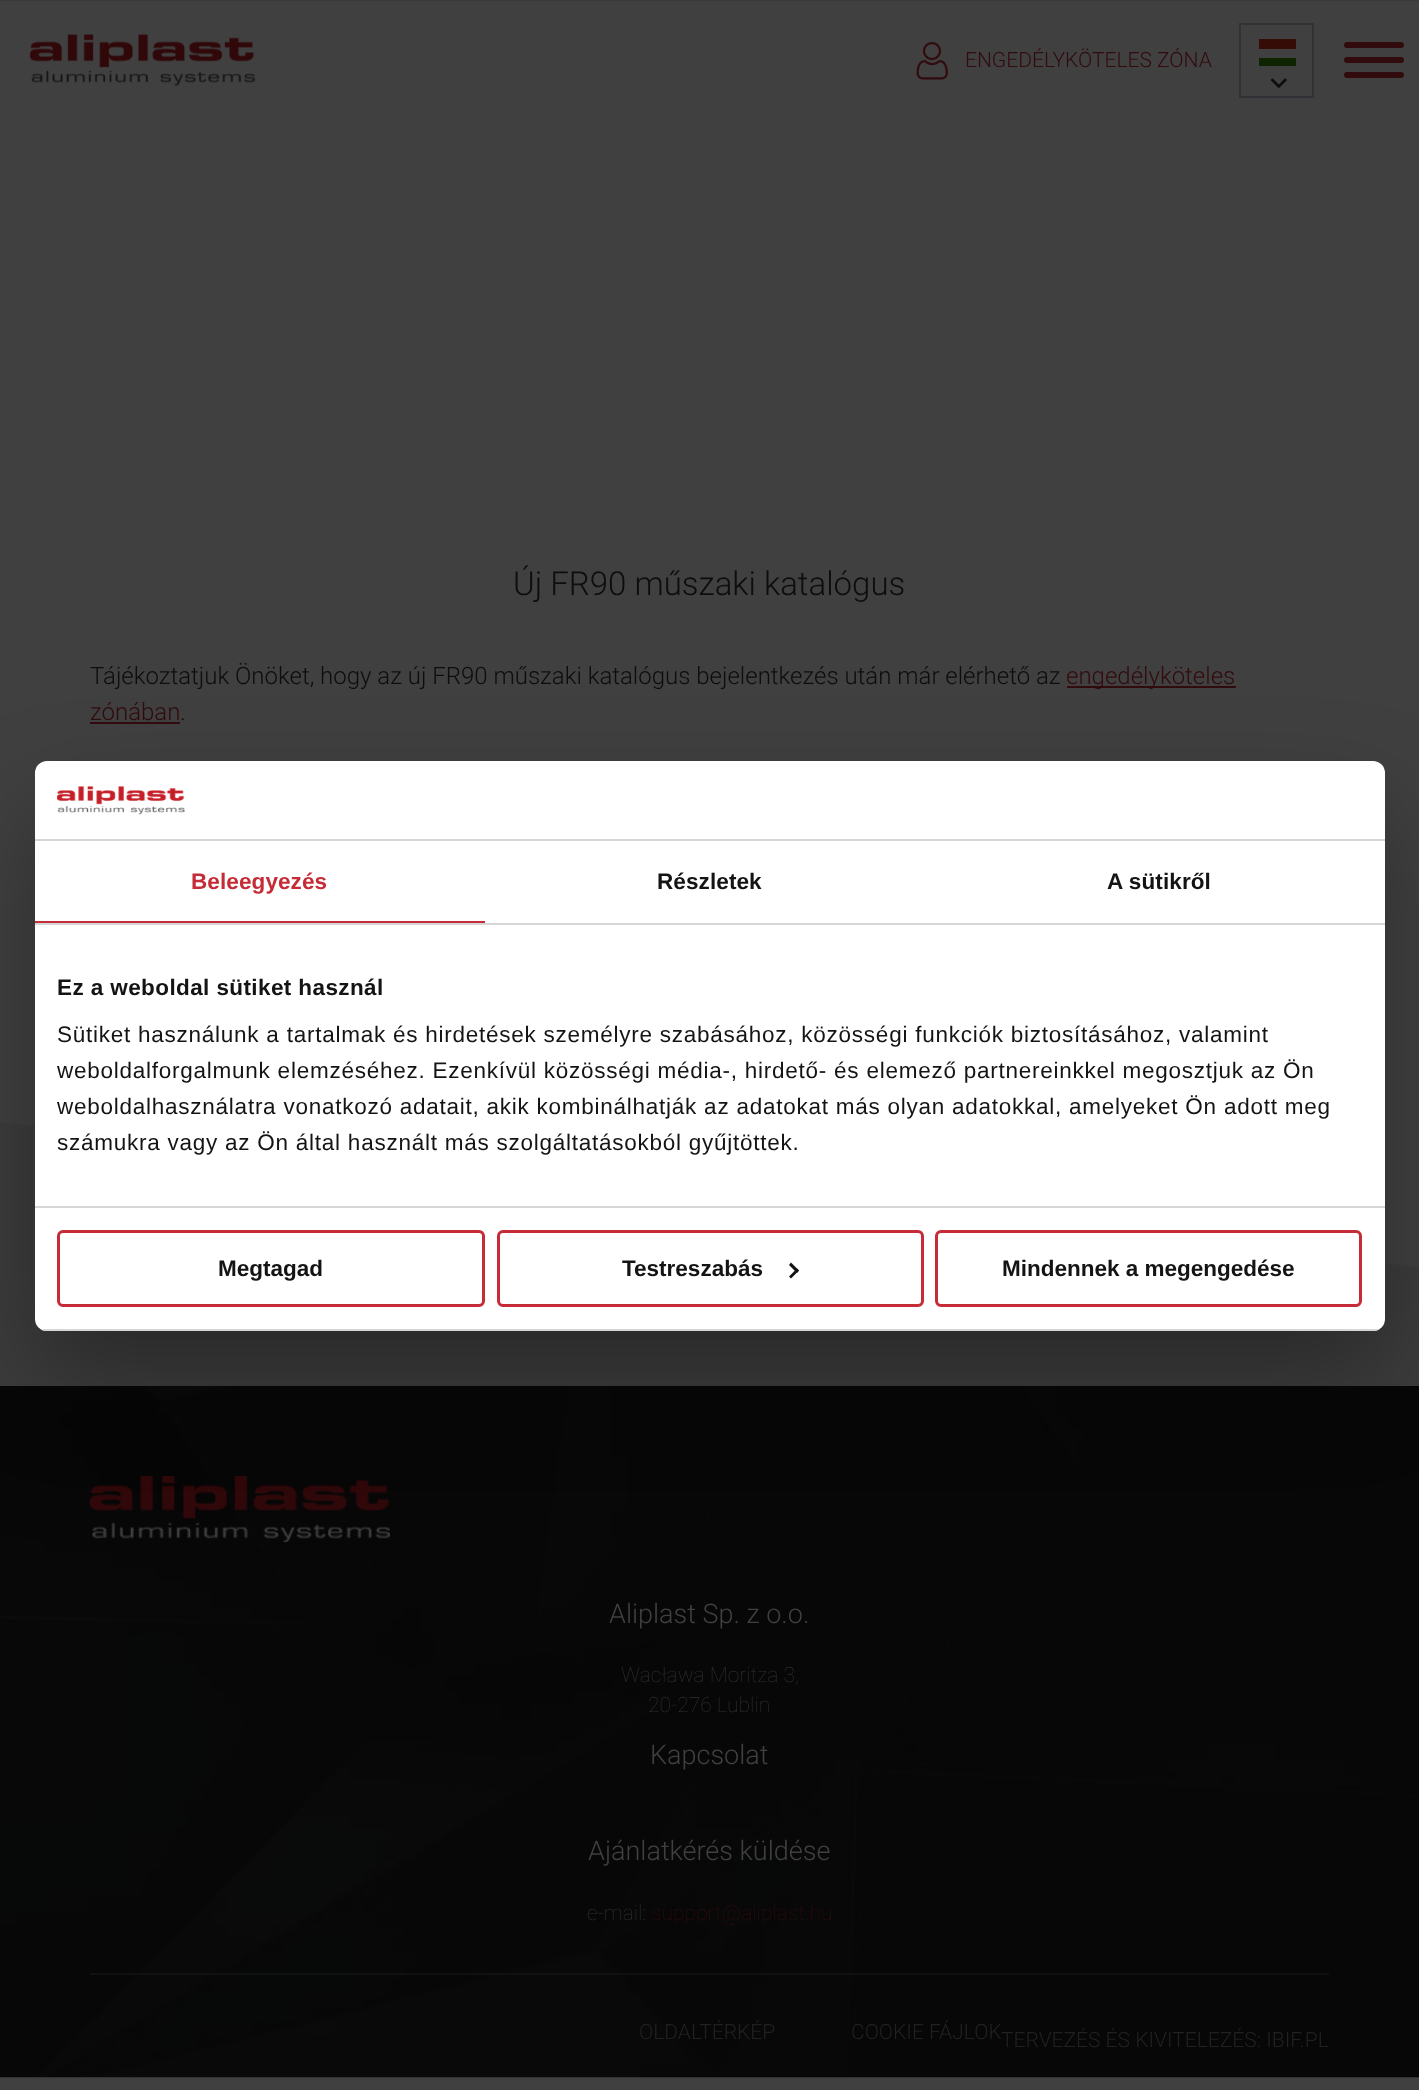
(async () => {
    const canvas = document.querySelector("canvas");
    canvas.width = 1419;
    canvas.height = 2090;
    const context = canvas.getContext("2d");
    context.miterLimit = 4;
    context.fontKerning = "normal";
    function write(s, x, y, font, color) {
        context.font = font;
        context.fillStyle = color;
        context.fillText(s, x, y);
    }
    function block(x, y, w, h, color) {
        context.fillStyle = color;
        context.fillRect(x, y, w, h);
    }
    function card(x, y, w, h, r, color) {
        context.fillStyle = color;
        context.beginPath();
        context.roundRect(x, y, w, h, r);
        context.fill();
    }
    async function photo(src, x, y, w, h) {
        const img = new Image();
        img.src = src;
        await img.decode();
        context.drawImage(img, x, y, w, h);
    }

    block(0, 0, 1419, 2090, "rgb(64, 64, 64)");
    block(0, 0, 1419, 1, "rgb(55, 57, 58)");
    await photo("media/1.png", 30, 34, 225, 52);
    await photo("media/2.png", 916, 42, 32, 38);
    write("ENGEDÉLYKÖTELES ZÓNA", 965, 67, "300 21px Roboto", "rgb(50, 11, 14)");
    context.strokeStyle = "rgb(49, 50, 53)";
    context.lineWidth = 2;
    context.strokeRect(1240, 24, 73, 73);
    block(1259, 58, 37, 8, "rgb(14, 35, 0)");
    block(1259, 39, 37, 10, "rgb(53, 13, 6)");
    await photo("media/3.png", 1270, 78, 17, 11);
    card(1344, 42, 60, 6, 3, "rgb(50, 11, 14)");
    card(1344, 57, 60, 6, 3, "rgb(50, 11, 14)");
    card(1344, 72, 60, 6, 3, "rgb(50, 11, 14)");
    write("Új FR90 műszaki katalógus", 513, 595, "300 33px Roboto", "rgb(13, 13, 13)");
    write("Tájékoztatjuk Önöket, hogy az új FR90 műszaki katalógus bejelentkezés után már elérhető az", 90, 684, "300 24px Roboto", "rgb(13, 13, 13)");
    block(1067, 686, 169, 2, "rgb(50, 11, 14)");
    write("engedélyköteles", 1066, 684, "300 24px Roboto", "rgb(50, 11, 14)");
    write("zónában", 90, 720, "300 24px Roboto", "rgb(50, 11, 14)");
    block(90, 722, 90, 2, "rgb(50, 11, 14)");
    write(".", 180, 720, "300 24px Roboto", "rgb(13, 13, 13)");
    await photo("media/4.png", 0, 1122, 1419, 264);
    await photo("media/5.png", 0, 1386, 1419, 692);
    await photo("media/6.png", 90, 1476, 300, 66);
    write("Aliplast Sp. z o.o.", 609, 1623, "300 27px Roboto", "rgb(64, 64, 64)");
    write("Wacława Moritza 3,", 621, 1682, "100 21px Roboto", "rgb(49, 49, 49)");
    write("20-276 Lublin", 648, 1712, "100 21px Roboto", "rgb(49, 49, 49)");
    write("Kapcsolat", 650, 1764, "300 27px Roboto", "rgb(64, 64, 64)");
    write("Ajánlatkérés küldése", 588, 1860, "300 27px Roboto", "rgb(64, 64, 64)");
    write("e-mail:", 587, 1920, "100 21px Roboto", "rgb(49, 49, 49)");
    write("support@aliplast.hu", 651, 1920, "100 21px Roboto", "rgb(50, 11, 14)");
    block(90, 1973, 1239, 2, "rgb(17, 17, 17)");
    write("OLDALTÉRKÉP", 639, 2039, "300 21px Roboto", "rgb(33, 33, 33)");
    write("COOKIE FÁJLOK", 851, 2039, "300 21px Roboto", "rgb(33, 33, 33)");
    write("TERVEZÉS ÉS KIVITELEZÉS: IBIF.PL", 1001, 2047, "300 21px Roboto", "rgb(33, 33, 33)");
    context.fillStyle = "rgba(0, 0, 0, 0.3)";
    context.filter = "blur(51px)";
    context.beginPath();
    context.roundRect(35, 809, 1350, 570, 12);
    context.fill();
    context.filter = "none";
    card(35, 761, 1350, 570, 12, "rgb(255, 255, 255)");
    block(35, 839, 1350, 2, "rgb(214, 214, 214)");
    await photo("media/7.png", 57, 786, 128, 29);
    block(35, 923, 1350, 2, "rgb(214, 214, 214)");
    block(35, 921, 450, 2, "rgb(198, 44, 55)");
    context.letterSpacing = "0.1px";
    write("Beleegyezés", 191, 889, "bold 22.5px Liberation Sans", "rgb(198, 44, 55)");
    write("Részletek", 657, 889, "bold 22.5px Liberation Sans", "rgb(20, 20, 20)");
    write("A sütikről", 1107, 889, "bold 22.5px Liberation Sans", "rgb(20, 20, 20)");
    block(35, 1206, 1350, 2, "rgb(214, 214, 214)");
    context.letterSpacing = "0.4px";
    write("Ez a weboldal sütiket használ", 57, 995, "bold 22.5px Liberation Sans", "rgb(20, 20, 20)");
    context.letterSpacing = "0.75px";
    write("Sütiket használunk a tartalmak és hirdetések személyre szabásához, közösségi funkciók biztosításához, valamint", 57, 1042, "22.5px Liberation Sans", "rgb(20, 20, 20)");
    write("weboldalforgalmunk elemzéséhez. Ezenkívül közösségi média-, hirdető- és elemező partnereinkkel megosztjuk az Ön", 57, 1078, "22.5px Liberation Sans", "rgb(20, 20, 20)");
    write("weboldalhasználatra vonatkozó adatait, akik kombinálhatják az adatokat más olyan adatokkal, amelyeket Ön adott meg", 57, 1114, "22.5px Liberation Sans", "rgb(20, 20, 20)");
    write("számukra vagy az Ön által használt más szolgáltatásokból gyűjtöttek.", 57, 1150, "22.5px Liberation Sans", "rgb(20, 20, 20)");
    context.save();
    context.beginPath();
    context.roundRect(35, 761, 1350, 570, 12);
    context.clip();
    block(35, 1329, 1350, 2, "rgb(214, 214, 214)");
    context.restore();
    context.beginPath();
    context.roundRect(58.5, 1231.5, 425, 74, 4.5);
    context.strokeStyle = "rgb(198, 44, 55)";
    context.lineWidth = 3;
    context.stroke();
    context.letterSpacing = "0px";
    write("Megtagad", 218, 1276, "bold 22.5px Liberation Sans", "rgb(20, 20, 20)");
    context.beginPath();
    context.roundRect(498.5, 1231.5, 424, 74, 4.5);
    context.stroke();
    write("Testreszabás", 622, 1276, "bold 22.5px Liberation Sans", "rgb(20, 20, 20)");
    context.beginPath();
    context.moveTo(791, 1262.5);
    context.lineTo(799, 1270.5);
    context.lineTo(797, 1273);
    context.lineTo(789, 1265);
    context.closePath();
    context.fill();
    context.beginPath();
    context.moveTo(797, 1268.5);
    context.lineTo(799, 1270.5);
    context.lineTo(791, 1278.5);
    context.lineTo(789, 1276.5);
    context.closePath();
    context.fill();
    context.beginPath();
    context.roundRect(936.5, 1231.5, 424, 74, 4.5);
    context.stroke();
    write("Mindennek a megengedése", 1002, 1276, "bold 22.5px Liberation Sans", "rgb(20, 20, 20)");
})();
